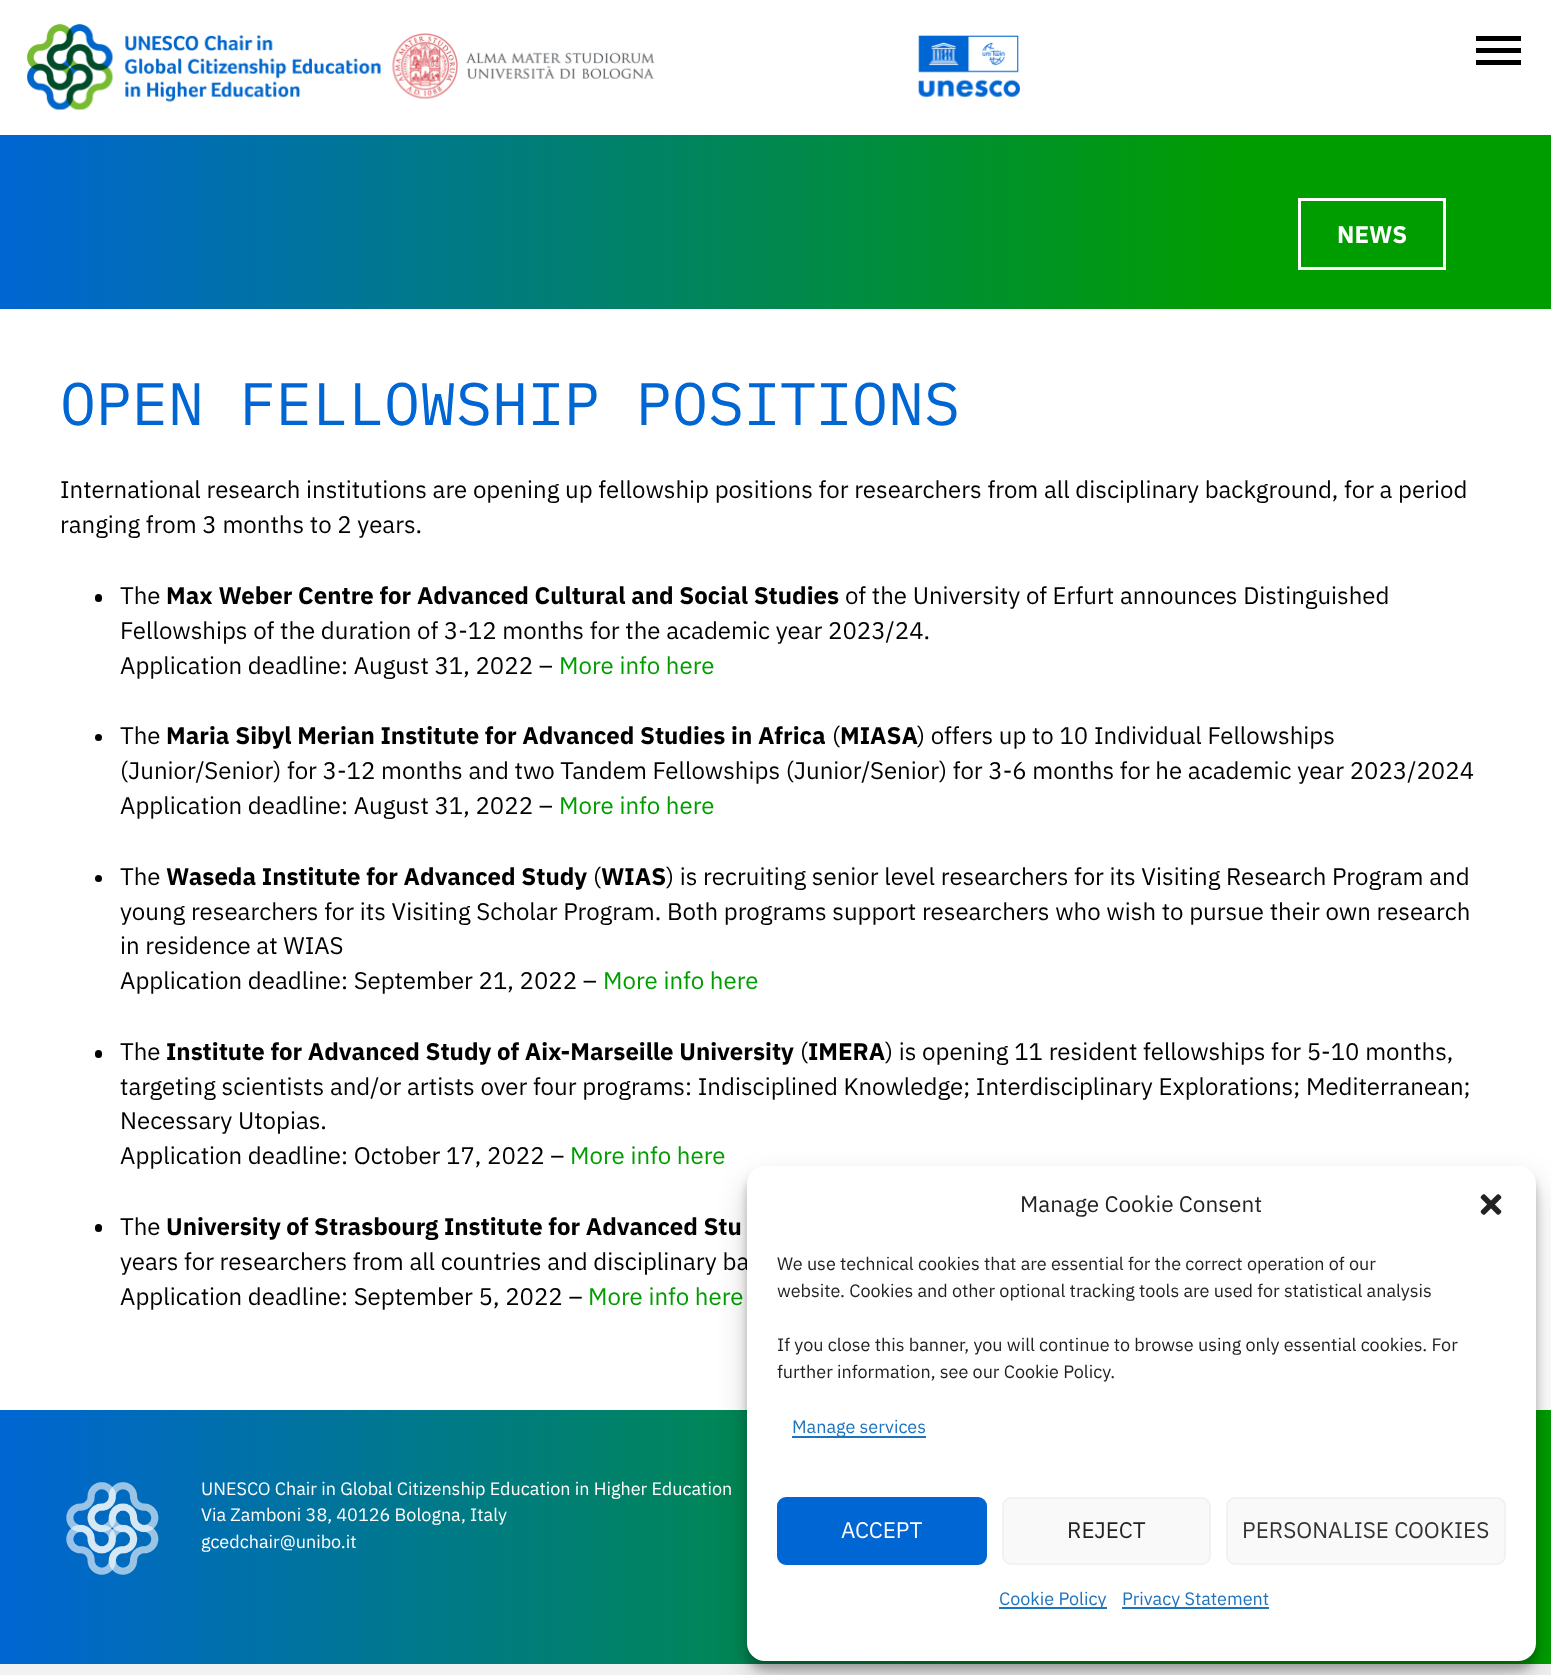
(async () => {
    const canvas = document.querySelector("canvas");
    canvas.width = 1551;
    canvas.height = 1675;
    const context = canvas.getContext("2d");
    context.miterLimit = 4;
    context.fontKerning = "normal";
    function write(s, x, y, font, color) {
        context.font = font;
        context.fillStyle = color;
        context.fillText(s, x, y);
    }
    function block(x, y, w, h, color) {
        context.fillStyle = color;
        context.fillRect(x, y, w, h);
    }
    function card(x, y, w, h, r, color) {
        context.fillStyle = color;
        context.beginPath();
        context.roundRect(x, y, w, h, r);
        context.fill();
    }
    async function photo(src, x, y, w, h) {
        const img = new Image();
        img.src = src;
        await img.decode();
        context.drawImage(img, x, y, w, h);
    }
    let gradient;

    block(0, 0, 1551, 1675, "rgb(242, 242, 242)");
    block(0, 0, 1551, 135, "rgb(255, 255, 255)");
    await photo("media/1.png", 27, 24, 993, 86);
    block(1476, 36, 45, 5, "rgb(0, 0, 0)");
    block(1476, 48, 45, 5, "rgb(0, 0, 0)");
    block(1476, 60, 45, 5, "rgb(0, 0, 0)");
    block(0, 309, 1551, 1101, "rgb(255, 255, 255)");
    gradient = context.createLinearGradient(0, 222, 1551, 222);
    gradient.addColorStop(0, "rgb(0, 102, 211)");
    gradient.addColorStop(0.8, "rgb(0, 157, 0)");
    context.fillStyle = gradient;
    context.fillRect(0, 135, 1551, 174);
    context.strokeStyle = "rgb(255, 255, 255)";
    context.lineWidth = 3;
    context.strokeRect(1299.5, 199.5, 145, 69);
    write("NEWS", 1337, 243, "bold 24px IBM Plex Sans", "rgb(255, 255, 255)");
    write("OPEN FELLOWSHIP POSITIONS", 60, 425, "60px IBM Plex Mono", "rgb(0, 102, 211)");
    write("International research institutions are opening up fellowship positions for researchers from all disciplinary background, for a period", 60, 498, "24px IBM Plex Sans", "rgb(0, 0, 0)");
    write("ranging from 3 months to 2 years.", 60, 533, "24px IBM Plex Sans", "rgb(0, 0, 0)");
    card(95, 594, 7, 8, 3.5, "rgb(0, 0, 0)");
    write("The", 120, 604, "24px IBM Plex Sans", "rgb(0, 0, 0)");
    write("Max Weber Centre for Advanced Cultural and Social Studies", 166, 604, "bold 24px IBM Plex Sans", "rgb(0, 0, 0)");
    write("of the University of Erfurt announces Distinguished", 845, 604, "24px IBM Plex Sans", "rgb(0, 0, 0)");
    write("Fellowships of the duration of 3-12 months for the academic year 2023/24.", 120, 639, "24px IBM Plex Sans", "rgb(0, 0, 0)");
    write("Application deadline: August 31, 2022 –", 120, 674, "24px IBM Plex Sans", "rgb(0, 0, 0)");
    write("More info here", 559, 674, "24px IBM Plex Sans", "rgb(0, 157, 0)");
    context.fillStyle = "rgb(0, 0, 0)";
    context.beginPath();
    context.arc(98.5, 737.5, 3.5, 0, Math.PI * 2);
    context.fill();
    write("The", 120, 744, "24px IBM Plex Sans", "rgb(0, 0, 0)");
    write("Maria Sibyl Merian Institute for Advanced Studies in Africa", 166, 744, "bold 24px IBM Plex Sans", "rgb(0, 0, 0)");
    write("(", 832, 744, "24px IBM Plex Sans", "rgb(0, 0, 0)");
    write("MIASA", 840, 744, "bold 24px IBM Plex Sans", "rgb(0, 0, 0)");
    write(") offers up to 10 Individual Fellowships", 917, 744, "24px IBM Plex Sans", "rgb(0, 0, 0)");
    write("(Junior/Senior) for 3-12 months and two Tandem Fellowships (Junior/Senior) for 3-6 months for he academic year 2023/2024", 120, 779, "24px IBM Plex Sans", "rgb(0, 0, 0)");
    write("Application deadline: August 31, 2022 –", 120, 814, "24px IBM Plex Sans", "rgb(0, 0, 0)");
    write("More info here", 559, 814, "24px IBM Plex Sans", "rgb(0, 157, 0)");
    context.fillStyle = "rgb(0, 0, 0)";
    context.beginPath();
    context.arc(98.5, 878.5, 3.5, 0, Math.PI * 2);
    context.fill();
    write("The", 120, 885, "24px IBM Plex Sans", "rgb(0, 0, 0)");
    write("Waseda Institute for Advanced Study", 166, 885, "bold 24px IBM Plex Sans", "rgb(0, 0, 0)");
    write("(", 593, 885, "24px IBM Plex Sans", "rgb(0, 0, 0)");
    write("WIAS", 601, 885, "bold 24px IBM Plex Sans", "rgb(0, 0, 0)");
    write(") is recruiting senior level researchers for its Visiting Research Program and", 666, 885, "24px IBM Plex Sans", "rgb(0, 0, 0)");
    write("young researchers for its Visiting Scholar Program. Both programs support researchers who wish to pursue their own research", 120, 920, "24px IBM Plex Sans", "rgb(0, 0, 0)");
    write("in residence at WIAS", 120, 954, "24px IBM Plex Sans", "rgb(0, 0, 0)");
    write("Application deadline: September 21, 2022 –", 120, 989, "24px IBM Plex Sans", "rgb(0, 0, 0)");
    write("More info here", 603, 989, "24px IBM Plex Sans", "rgb(0, 157, 0)");
    card(95, 1050, 7, 8, 3.5, "rgb(0, 0, 0)");
    write("The", 120, 1060, "24px IBM Plex Sans", "rgb(0, 0, 0)");
    write("Institute for Advanced Study of Aix-Marseille University", 166, 1060, "bold 24px IBM Plex Sans", "rgb(0, 0, 0)");
    write("(", 800, 1060, "24px IBM Plex Sans", "rgb(0, 0, 0)");
    write("IMERA", 808, 1060, "bold 24px IBM Plex Sans", "rgb(0, 0, 0)");
    write(") is opening 11 resident fellowships for 5-10 months,", 885, 1060, "24px IBM Plex Sans", "rgb(0, 0, 0)");
    write("targeting scientists and/or artists over four programs: Indisciplined Knowledge; Interdisciplinary Explorations; Mediterranean;", 120, 1095, "24px IBM Plex Sans", "rgb(0, 0, 0)");
    write("Necessary Utopias.", 120, 1129, "24px IBM Plex Sans", "rgb(0, 0, 0)");
    write("Application deadline: October 17, 2022 –", 120, 1164, "24px IBM Plex Sans", "rgb(0, 0, 0)");
    write("More info here", 570, 1164, "24px IBM Plex Sans", "rgb(0, 157, 0)");
    card(95, 1224, 7, 8, 3.5, "rgb(0, 0, 0)");
    write("The", 120, 1235, "24px IBM Plex Sans", "rgb(0, 0, 0)");
    write("University of Strasbourg Institute for Advanced Stu", 166, 1235, "bold 24px IBM Plex Sans", "rgb(0, 0, 0)");
    write("years for researchers from all countries and disciplinary ba", 120, 1270, "24px IBM Plex Sans", "rgb(0, 0, 0)");
    write("Application deadline: September 5, 2022 –", 120, 1305, "24px IBM Plex Sans", "rgb(0, 0, 0)");
    write("More info here", 588, 1305, "24px IBM Plex Sans", "rgb(0, 157, 0)");
    gradient = context.createLinearGradient(0, 1537, 1551, 1537);
    gradient.addColorStop(0, "rgb(0, 102, 211)");
    gradient.addColorStop(0.8, "rgb(0, 157, 0)");
    context.fillStyle = gradient;
    context.fillRect(0, 1410, 1551, 254);
    await photo("media/2.png", 66, 1482, 93, 93);
    write("UNESCO Chair in Global Citizenship Education in Higher Education", 201, 1495, "18px IBM Plex Sans", "rgb(255, 255, 255)");
    write("Via Zamboni 38, 40126 Bologna, Italy", 201, 1521, "18px IBM Plex Sans", "rgb(255, 255, 255)");
    write("gcedchair@unibo.it", 201, 1548, "18px IBM Plex Sans", "rgb(255, 255, 255)");
    context.fillStyle = "rgba(0, 0, 0, 0.23)";
    context.filter = "blur(4.5px)";
    context.beginPath();
    context.roundRect(747, 1175, 789, 495, 18);
    context.fill();
    context.filter = "none";
    context.fillStyle = "rgba(0, 0, 0, 0.19)";
    context.filter = "blur(15px)";
    context.beginPath();
    context.roundRect(747, 1181, 789, 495, 18);
    context.fill();
    context.filter = "none";
    card(747, 1166, 789, 495, 18, "rgb(255, 255, 255)");
    write("Manage Cookie Consent", 1020, 1212, "22.5px IBM Plex Sans", "rgb(34, 34, 34)");
    await photo("media/3.png", 1480, 1194, 22, 21);
    write("We use technical cookies that are essential for the correct operation of our", 777, 1270, "18px IBM Plex Sans", "rgb(34, 34, 34)");
    write("website. Cookies and other optional tracking tools are used for statistical analysis", 777, 1297, "18px IBM Plex Sans", "rgb(34, 34, 34)");
    write("If you close this banner, you will continue to browse using only essential cookies. For", 777, 1351, "18px IBM Plex Sans", "rgb(34, 34, 34)");
    write("further information, see our Cookie Policy.", 777, 1378, "18px IBM Plex Sans", "rgb(34, 34, 34)");
    block(792, 1436, 134, 2, "rgb(30, 115, 190)");
    write("Manage services", 792, 1433, "18px IBM Plex Sans", "rgb(30, 115, 190)");
    context.fillStyle = "rgb(0, 102, 211)";
    context.beginPath();
    context.roundRect(778, 1498, 208, 66, 8);
    context.fill();
    context.strokeStyle = "rgb(0, 102, 211)";
    context.lineWidth = 2;
    context.stroke();
    write("ACCEPT", 841, 1538, "22.5px IBM Plex Sans", "rgb(255, 255, 255)");
    context.fillStyle = "rgb(249, 249, 249)";
    context.beginPath();
    context.roundRect(1003, 1498, 207, 66, 8);
    context.fill();
    context.strokeStyle = "rgb(242, 242, 242)";
    context.stroke();
    write("REJECT", 1067, 1538, "22.5px IBM Plex Sans", "rgb(34, 34, 34)");
    context.fillStyle = "rgb(249, 249, 249)";
    context.beginPath();
    context.roundRect(1227, 1498, 278, 66, 8);
    context.fill();
    context.stroke();
    write("PERSONALISE COOKIES", 1242, 1538, "22.5px IBM Plex Sans", "rgb(51, 51, 51)");
    block(999, 1607, 108, 2, "rgb(30, 115, 190)");
    write("Cookie Policy", 999, 1605, "18px IBM Plex Sans", "rgb(30, 115, 190)");
    block(1122, 1607, 147, 2, "rgb(30, 115, 190)");
    write("Privacy Statement", 1122, 1605, "18px IBM Plex Sans", "rgb(30, 115, 190)");
})();
